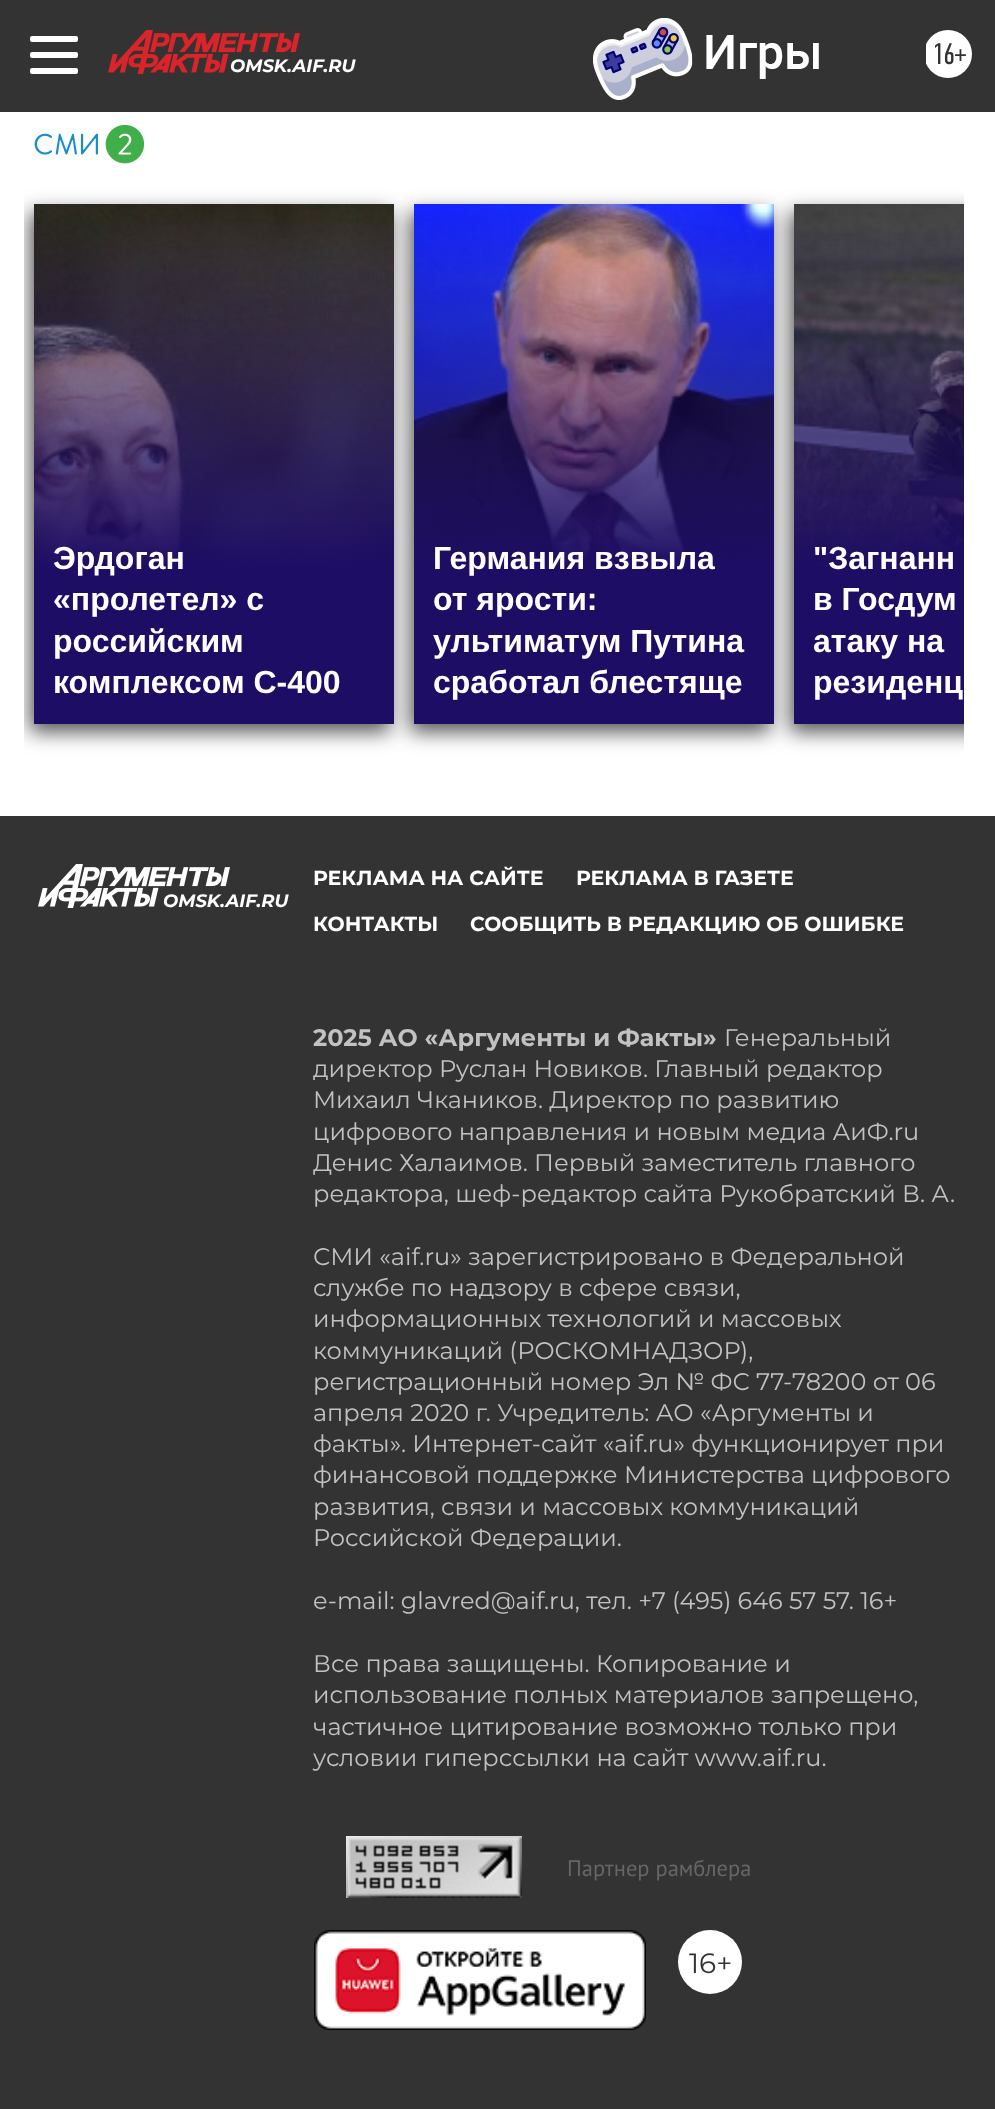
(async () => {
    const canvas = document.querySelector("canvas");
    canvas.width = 995;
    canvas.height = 2109;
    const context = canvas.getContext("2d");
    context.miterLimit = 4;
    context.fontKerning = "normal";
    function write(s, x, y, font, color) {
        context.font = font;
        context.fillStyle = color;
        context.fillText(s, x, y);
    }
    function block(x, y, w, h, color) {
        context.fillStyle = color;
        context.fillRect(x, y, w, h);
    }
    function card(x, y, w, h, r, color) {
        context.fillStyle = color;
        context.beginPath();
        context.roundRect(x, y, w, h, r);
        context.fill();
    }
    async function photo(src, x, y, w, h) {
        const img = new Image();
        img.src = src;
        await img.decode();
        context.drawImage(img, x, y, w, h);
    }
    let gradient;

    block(0, 0, 995, 2109, "rgb(255, 255, 255)");
    block(0, 0, 995, 112, "rgb(51, 51, 51)");
    card(30, 36, 48, 6, 2, "rgb(255, 255, 255)");
    card(30, 52, 48, 6, 2, "rgb(255, 255, 255)");
    card(30, 68, 48, 6, 2, "rgb(255, 255, 255)");
    await photo("media/1.png", 108, 30, 192, 44);
    write("OMSK.AIF.RU", 230, 72, "italic bold 18px Montserrat", "rgb(255, 255, 255)");
    context.beginPath();
    context.arc(948, 54, 24, 0, Math.PI * 2);
    context.fill();
    await photo("media/2.png", 593, 18, 333, 82);
    write("16+", 932, 64, "30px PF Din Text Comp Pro", "rgb(51, 51, 51)");
    await photo("media/3.png", 34, 124, 110, 40);
    context.save();
    context.beginPath();
    context.rect(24, 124, 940, 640);
    context.clip();
    context.fillStyle = "rgb(86, 84, 84)";
    context.filter = "blur(10px)";
    context.beginPath();
    context.rect(30, 212, 360, 520);
    context.fill();
    context.filter = "none";
    context.restore();
    await photo("media/4.png", 34, 204, 360, 362);
    context.fillStyle = "rgb(86, 84, 84)";
    context.filter = "blur(10px)";
    context.beginPath();
    context.rect(410, 212, 360, 520);
    context.fill();
    context.filter = "none";
    gradient = context.createLinearGradient(214, 724, 214, 204);
    gradient.addColorStop(0.3, "rgb(30, 13, 100)");
    gradient.addColorStop(1, "rgba(30, 13, 100, 0)");
    context.fillStyle = gradient;
    context.fillRect(34, 217, 360, 507);
    write("Эрдоган", 53, 569, "bold 32px Liberation Sans", "rgb(255, 255, 255)");
    write("«пролетел» с", 53, 610, "bold 32px Liberation Sans", "rgb(255, 255, 255)");
    write("российским", 53, 652, "bold 32px Liberation Sans", "rgb(255, 255, 255)");
    write("комплексом С-400", 53, 693, "bold 32px Liberation Sans", "rgb(255, 255, 255)");
    await photo("media/5.png", 414, 204, 360, 362);
    context.save();
    context.beginPath();
    context.rect(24, 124, 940, 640);
    context.clip();
    context.fillStyle = "rgb(86, 84, 84)";
    context.filter = "blur(10px)";
    context.beginPath();
    context.rect(790, 212, 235, 520);
    context.fill();
    context.filter = "none";
    context.restore();
    gradient = context.createLinearGradient(594, 724, 594, 204);
    gradient.addColorStop(0.3, "rgb(30, 13, 100)");
    gradient.addColorStop(1, "rgba(30, 13, 100, 0)");
    context.fillStyle = gradient;
    context.fillRect(414, 212, 360, 512);
    write("Германия взвыла", 433, 569, "bold 32px Liberation Sans", "rgb(255, 255, 255)");
    write("от ярости:", 433, 610, "bold 32px Liberation Sans", "rgb(255, 255, 255)");
    write("ультиматум Путина", 433, 652, "bold 32px Liberation Sans", "rgb(255, 255, 255)");
    write("сработал блестяще", 433, 693, "bold 32px Liberation Sans", "rgb(255, 255, 255)");
    await photo("media/6.png", 794, 204, 170, 520);
    write("\"Загнанн", 813, 569, "bold 32px Liberation Sans", "rgb(255, 255, 255)");
    write("в Госдум", 813, 610, "bold 32px Liberation Sans", "rgb(255, 255, 255)");
    write("атаку на", 813, 652, "bold 32px Liberation Sans", "rgb(255, 255, 255)");
    write("резиденц", 813, 693, "bold 32px Liberation Sans", "rgb(255, 255, 255)");
    block(0, 816, 995, 1293, "rgb(51, 51, 51)");
    await photo("media/7.png", 38, 864, 192, 44);
    write("OMSK.AIF.RU", 163, 907, "italic bold 18px Montserrat", "rgb(255, 255, 255)");
    write("РЕКЛАМА НА САЙТЕ", 313, 885, "bold 20.4px Montserrat", "rgb(255, 255, 255)");
    write("РЕКЛАМА В ГАЗЕТЕ", 576, 885, "bold 20.4px Montserrat", "rgb(255, 255, 255)");
    write("КОНТАКТЫ", 313, 931, "bold 20.4px Montserrat", "rgb(255, 255, 255)");
    write("СООБЩИТЬ В РЕДАКЦИЮ ОБ ОШИБКЕ", 470, 931, "bold 20.4px Montserrat", "rgb(255, 255, 255)");
    write("2025 АО «Аргументы и Факты»", 313, 1046, "bold 24px Montserrat", "rgb(194, 194, 194)");
    write("Генеральный", 724, 1046, "24px Montserrat", "rgb(194, 194, 194)");
    write("директор Руслан Новиков. Главный редактор", 313, 1077, "24px Montserrat", "rgb(194, 194, 194)");
    write("Михаил Чкаников. Директор по развитию", 313, 1108, "24px Montserrat", "rgb(194, 194, 194)");
    write("цифрового направления и новым медиа АиФ.ru", 313, 1140, "24px Montserrat", "rgb(194, 194, 194)");
    write("Денис Халаимов. Первый заместитель главного", 313, 1171, "24px Montserrat", "rgb(194, 194, 194)");
    write("редактора, шеф-редактор сайта Рукобратский В. А.", 313, 1202, "24px Montserrat", "rgb(194, 194, 194)");
    write("СМИ «aif.ru» зарегистрировано в Федеральной", 313, 1265, "24px Montserrat", "rgb(194, 194, 194)");
    write("службе по надзору в сфере связи,", 313, 1296, "24px Montserrat", "rgb(194, 194, 194)");
    write("информационных технологий и массовых", 313, 1327, "24px Montserrat", "rgb(194, 194, 194)");
    write("коммуникаций (РОСКОМНАДЗОР),", 313, 1359, "24px Montserrat", "rgb(194, 194, 194)");
    write("регистрационный номер Эл № ФС 77-78200 от 06", 313, 1390, "24px Montserrat", "rgb(194, 194, 194)");
    write("апреля 2020 г. Учредитель: АО «Аргументы и", 313, 1421, "24px Montserrat", "rgb(194, 194, 194)");
    write("факты». Интернет-сайт «aif.ru» функционирует при", 313, 1452, "24px Montserrat", "rgb(194, 194, 194)");
    write("финансовой поддержке Министерства цифрового", 313, 1483, "24px Montserrat", "rgb(194, 194, 194)");
    write("развития, связи и массовых коммуникаций", 313, 1515, "24px Montserrat", "rgb(194, 194, 194)");
    write("Российской Федерации.", 313, 1546, "24px Montserrat", "rgb(194, 194, 194)");
    write("e-mail: glavred@aif.ru, тел. +7 (495) 646 57 57. 16+", 313, 1609, "24px Montserrat", "rgb(194, 194, 194)");
    write("Все права защищены. Копирование и", 313, 1672, "24px Montserrat", "rgb(194, 194, 194)");
    write("использование полных материалов запрещено,", 313, 1703, "24px Montserrat", "rgb(194, 194, 194)");
    write("частичное цитирование возможно только при", 313, 1735, "24px Montserrat", "rgb(194, 194, 194)");
    write("условии гиперссылки на сайт www.aif.ru.", 313, 1766, "24px Montserrat", "rgb(194, 194, 194)");
    await photo("media/8.png", 346, 1836, 176, 62);
    write("Партнер рамблера", 567, 1876, "22.5px PT Sans", "rgb(102, 102, 102)");
    await photo("media/9.png", 314, 1930, 332, 100);
    context.fillStyle = "rgb(255, 255, 255)";
    context.beginPath();
    context.arc(710, 1962, 32, 0, Math.PI * 2);
    context.fill();
    write("16+", 689, 1973, "28px Montserrat", "rgb(51, 51, 51)");
})();
